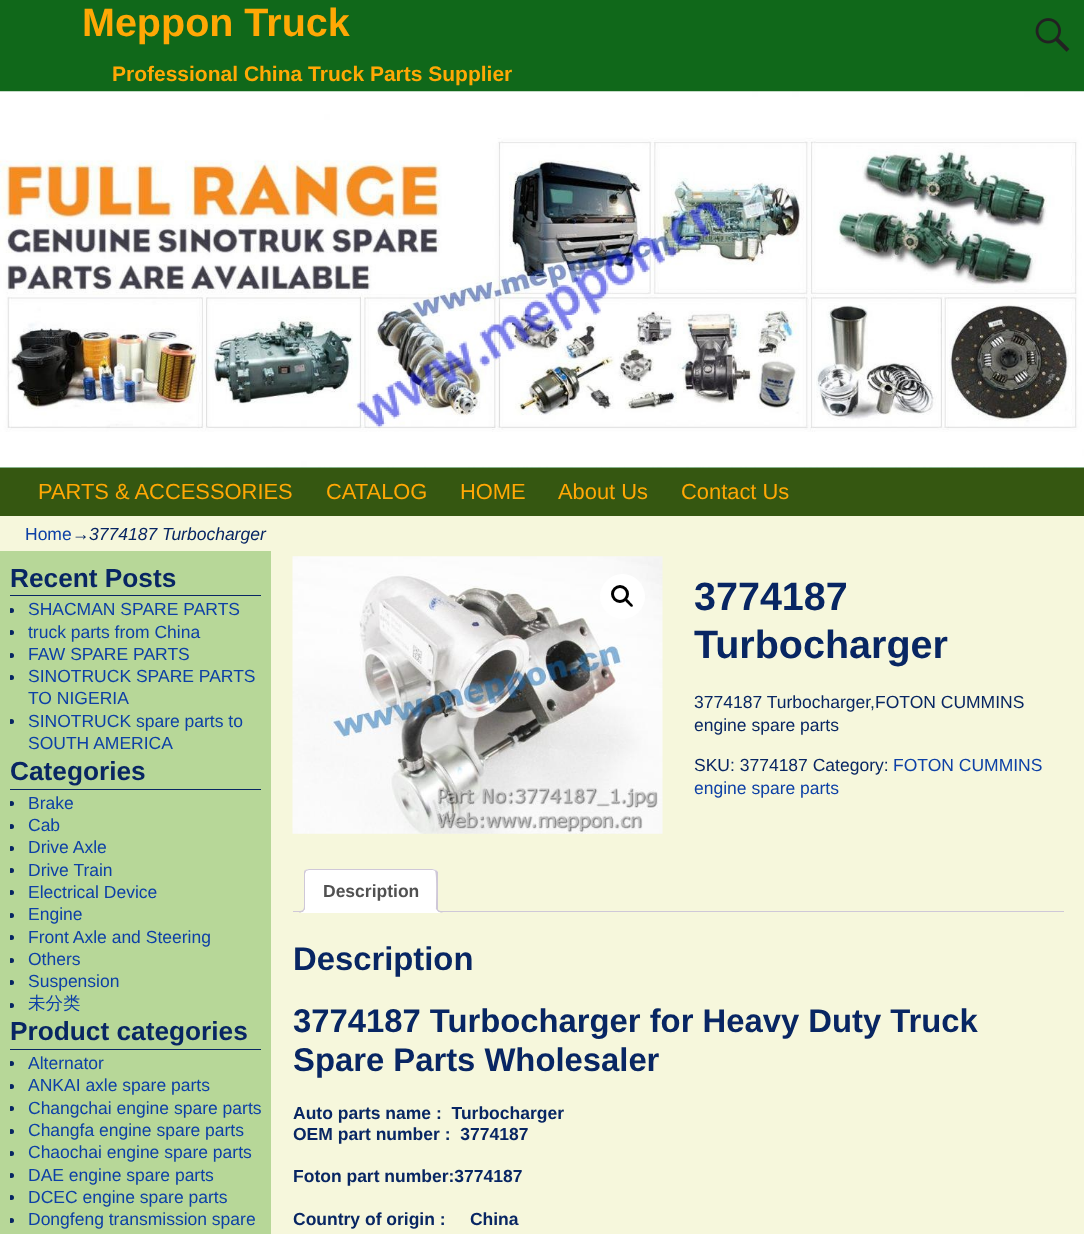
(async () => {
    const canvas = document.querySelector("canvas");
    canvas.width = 1084;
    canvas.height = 1234;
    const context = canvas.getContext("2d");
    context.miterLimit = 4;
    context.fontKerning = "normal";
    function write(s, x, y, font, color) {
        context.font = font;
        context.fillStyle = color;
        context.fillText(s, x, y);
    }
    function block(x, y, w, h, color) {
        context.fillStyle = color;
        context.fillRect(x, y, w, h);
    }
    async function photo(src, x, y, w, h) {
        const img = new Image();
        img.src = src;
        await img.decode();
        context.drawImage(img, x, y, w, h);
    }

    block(0, 0, 1084, 1234, "rgb(16, 104, 26)");
    write("Meppon Truck", 82, 36, "bold 39.5px Liberation Sans", "rgb(255, 168, 5)");
    await photo("media/1.png", 1035, 18, 35, 34);
    write("Professional China Truck Parts Supplier", 112, 81, "bold 21px Liberation Sans", "rgb(255, 168, 5)");
    await photo("media/2.png", 0, 91, 1084, 377);
    block(0, 468, 1084, 48, "rgb(53, 87, 17)");
    write("PARTS & ACCESSORIES", 38, 499, "21.9px Liberation Sans", "rgb(255, 168, 5)");
    write("CATALOG", 326, 499, "21.9px Liberation Sans", "rgb(255, 168, 5)");
    write("HOME", 460, 499, "21.9px Liberation Sans", "rgb(255, 168, 5)");
    write("About Us", 558, 499, "21.9px Liberation Sans", "rgb(255, 168, 5)");
    write("Contact Us", 681, 499, "21.9px Liberation Sans", "rgb(255, 168, 5)");
    block(0, 516, 1084, 718, "rgb(246, 247, 220)");
    write("Home", 25, 540, "17.5px Liberation Sans", "rgb(13, 64, 166)");
    write("→", 72, 540, "17.5px Liberation Sans", "rgb(8, 38, 99)");
    write("3774187 Turbocharger", 89, 540, "italic 17.5px Liberation Sans", "rgb(8, 38, 99)");
    block(0, 551, 271, 683, "rgb(183, 215, 152)");
    block(10, 595, 251, 1, "rgb(8, 38, 99)");
    write("Recent Posts", 10, 587, "bold 26.25px Liberation Sans", "rgb(8, 38, 99)");
    context.save();
    context.beginPath();
    context.rect(10, 561, 251, 194);
    context.clip();
    context.beginPath();
    context.arc(11.5, 610.5, 2.5, 0, Math.PI * 2);
    context.fill();
    context.restore();
    write("SHACMAN SPARE PARTS", 28, 615, "17.5px Liberation Sans", "rgb(13, 64, 166)");
    context.save();
    context.beginPath();
    context.rect(10, 561, 251, 194);
    context.clip();
    context.fillStyle = "rgb(8, 38, 99)";
    context.beginPath();
    context.arc(11.5, 632.5, 2.5, 0, Math.PI * 2);
    context.fill();
    context.restore();
    write("truck parts from China", 28, 638, "17.5px Liberation Sans", "rgb(13, 64, 166)");
    context.save();
    context.beginPath();
    context.rect(10, 561, 251, 194);
    context.clip();
    context.fillStyle = "rgb(8, 38, 99)";
    context.beginPath();
    context.arc(11.5, 655.5, 2.5, 0, Math.PI * 2);
    context.fill();
    context.restore();
    write("FAW SPARE PARTS", 28, 660, "17.5px Liberation Sans", "rgb(13, 64, 166)");
    context.save();
    context.beginPath();
    context.rect(10, 561, 251, 194);
    context.clip();
    context.fillStyle = "rgb(8, 38, 99)";
    context.beginPath();
    context.arc(11.5, 677.5, 2.5, 0, Math.PI * 2);
    context.fill();
    context.restore();
    write("SINOTRUCK SPARE PARTS", 28, 682, "17.5px Liberation Sans", "rgb(13, 64, 166)");
    write("TO NIGERIA", 28, 704, "17.5px Liberation Sans", "rgb(13, 64, 166)");
    context.save();
    context.beginPath();
    context.rect(10, 561, 251, 194);
    context.clip();
    context.fillStyle = "rgb(8, 38, 99)";
    context.beginPath();
    context.arc(11.5, 721.5, 2.5, 0, Math.PI * 2);
    context.fill();
    context.restore();
    write("SINOTRUCK spare parts to", 28, 727, "17.5px Liberation Sans", "rgb(13, 64, 166)");
    write("SOUTH AMERICA", 28, 749, "17.5px Liberation Sans", "rgb(13, 64, 166)");
    block(10, 789, 251, 1, "rgb(8, 38, 99)");
    write("Categories", 10, 780, "bold 26.25px Liberation Sans", "rgb(8, 38, 99)");
    context.save();
    context.beginPath();
    context.rect(10, 755, 251, 260);
    context.clip();
    context.beginPath();
    context.arc(11.5, 803.5, 2.5, 0, Math.PI * 2);
    context.fill();
    context.restore();
    write("Brake", 28, 809, "17.5px Liberation Sans", "rgb(13, 64, 166)");
    context.save();
    context.beginPath();
    context.rect(10, 755, 251, 260);
    context.clip();
    context.fillStyle = "rgb(8, 38, 99)";
    context.beginPath();
    context.arc(11.5, 826.5, 2.5, 0, Math.PI * 2);
    context.fill();
    context.restore();
    write("Cab", 28, 831, "17.5px Liberation Sans", "rgb(13, 64, 166)");
    context.save();
    context.beginPath();
    context.rect(10, 755, 251, 260);
    context.clip();
    context.fillStyle = "rgb(8, 38, 99)";
    context.beginPath();
    context.arc(11.5, 848.5, 2.5, 0, Math.PI * 2);
    context.fill();
    context.restore();
    write("Drive Axle", 28, 853, "17.5px Liberation Sans", "rgb(13, 64, 166)");
    context.save();
    context.beginPath();
    context.rect(10, 755, 251, 260);
    context.clip();
    context.fillStyle = "rgb(8, 38, 99)";
    context.beginPath();
    context.arc(11.5, 870.5, 2.5, 0, Math.PI * 2);
    context.fill();
    context.restore();
    write("Drive Train", 28, 876, "17.5px Liberation Sans", "rgb(13, 64, 166)");
    context.save();
    context.beginPath();
    context.rect(10, 755, 251, 260);
    context.clip();
    context.fillStyle = "rgb(8, 38, 99)";
    context.beginPath();
    context.arc(11.5, 892.5, 2.5, 0, Math.PI * 2);
    context.fill();
    context.restore();
    write("Electrical Device", 28, 898, "17.5px Liberation Sans", "rgb(13, 64, 166)");
    context.save();
    context.beginPath();
    context.rect(10, 755, 251, 260);
    context.clip();
    context.fillStyle = "rgb(8, 38, 99)";
    context.beginPath();
    context.arc(11.5, 915.5, 2.5, 0, Math.PI * 2);
    context.fill();
    context.restore();
    write("Engine", 28, 920, "17.5px Liberation Sans", "rgb(13, 64, 166)");
    context.save();
    context.beginPath();
    context.rect(10, 755, 251, 260);
    context.clip();
    context.fillStyle = "rgb(8, 38, 99)";
    context.beginPath();
    context.arc(11.5, 937.5, 2.5, 0, Math.PI * 2);
    context.fill();
    context.restore();
    write("Front Axle and Steering", 28, 943, "17.5px Liberation Sans", "rgb(13, 64, 166)");
    context.save();
    context.beginPath();
    context.rect(10, 755, 251, 260);
    context.clip();
    context.fillStyle = "rgb(8, 38, 99)";
    context.beginPath();
    context.arc(11.5, 960.5, 2.5, 0, Math.PI * 2);
    context.fill();
    context.restore();
    write("Others", 28, 965, "17.5px Liberation Sans", "rgb(13, 64, 166)");
    context.save();
    context.beginPath();
    context.rect(10, 755, 251, 260);
    context.clip();
    context.fillStyle = "rgb(8, 38, 99)";
    context.beginPath();
    context.arc(11.5, 982.5, 2.5, 0, Math.PI * 2);
    context.fill();
    context.restore();
    write("Suspension", 28, 987, "17.5px Liberation Sans", "rgb(13, 64, 166)");
    context.save();
    context.beginPath();
    context.rect(10, 755, 251, 260);
    context.clip();
    context.fillStyle = "rgb(8, 38, 99)";
    context.beginPath();
    context.arc(11.5, 1005.5, 2.5, 0, Math.PI * 2);
    context.fill();
    context.restore();
    write("未分类", 28, 1009, "500 17.5px WenQuanYi Zen Hei", "rgb(13, 64, 166)");
    block(10, 1049, 251, 1, "rgb(8, 38, 99)");
    write("Product categories", 10, 1040, "bold 26.25px Liberation Sans", "rgb(8, 38, 99)");
    context.save();
    context.beginPath();
    context.rect(10, 1015, 251, 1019);
    context.clip();
    context.beginPath();
    context.arc(11.5, 1063.5, 2.5, 0, Math.PI * 2);
    context.fill();
    context.restore();
    write("Alternator", 28, 1069, "17.5px Liberation Sans", "rgb(13, 64, 166)");
    context.save();
    context.beginPath();
    context.rect(10, 1015, 251, 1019);
    context.clip();
    context.fillStyle = "rgb(8, 38, 99)";
    context.beginPath();
    context.arc(11.5, 1086.5, 2.5, 0, Math.PI * 2);
    context.fill();
    context.restore();
    write("ANKAI axle spare parts", 28, 1091, "17.5px Liberation Sans", "rgb(13, 64, 166)");
    context.save();
    context.beginPath();
    context.rect(10, 1015, 251, 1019);
    context.clip();
    context.fillStyle = "rgb(8, 38, 99)";
    context.beginPath();
    context.arc(11.5, 1108.5, 2.5, 0, Math.PI * 2);
    context.fill();
    context.restore();
    write("Changchai engine spare parts", 28, 1114, "17.5px Liberation Sans", "rgb(13, 64, 166)");
    context.save();
    context.beginPath();
    context.rect(10, 1015, 251, 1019);
    context.clip();
    context.fillStyle = "rgb(8, 38, 99)";
    context.beginPath();
    context.arc(11.5, 1131.5, 2.5, 0, Math.PI * 2);
    context.fill();
    context.restore();
    write("Changfa engine spare parts", 28, 1136, "17.5px Liberation Sans", "rgb(13, 64, 166)");
    context.save();
    context.beginPath();
    context.rect(10, 1015, 251, 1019);
    context.clip();
    context.fillStyle = "rgb(8, 38, 99)";
    context.beginPath();
    context.arc(11.5, 1153.5, 2.5, 0, Math.PI * 2);
    context.fill();
    context.restore();
    write("Chaochai engine spare parts", 28, 1158, "17.5px Liberation Sans", "rgb(13, 64, 166)");
    context.save();
    context.beginPath();
    context.rect(10, 1015, 251, 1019);
    context.clip();
    context.fillStyle = "rgb(8, 38, 99)";
    context.beginPath();
    context.arc(11.5, 1175.5, 2.5, 0, Math.PI * 2);
    context.fill();
    context.restore();
    write("DAE engine spare parts", 28, 1181, "17.5px Liberation Sans", "rgb(13, 64, 166)");
    context.save();
    context.beginPath();
    context.rect(10, 1015, 251, 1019);
    context.clip();
    context.fillStyle = "rgb(8, 38, 99)";
    context.beginPath();
    context.arc(11.5, 1197.5, 2.5, 0, Math.PI * 2);
    context.fill();
    context.restore();
    write("DCEC engine spare parts", 28, 1203, "17.5px Liberation Sans", "rgb(13, 64, 166)");
    context.save();
    context.beginPath();
    context.rect(10, 1015, 251, 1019);
    context.clip();
    context.fillStyle = "rgb(8, 38, 99)";
    context.beginPath();
    context.arc(11.5, 1220.5, 2.5, 0, Math.PI * 2);
    context.fill();
    context.restore();
    write("Dongfeng transmission spare", 28, 1225, "17.5px Liberation Sans", "rgb(13, 64, 166)");
    await photo("media/3.png", 292, 556, 371, 278);
    context.fillStyle = "rgb(255, 255, 255)";
    context.beginPath();
    context.arc(622.5, 596.5, 22.5, 0, Math.PI * 2);
    context.fill();
    context.beginPath();
    context.arc(620, 594, 7.5, 0, Math.PI * 2);
    context.strokeStyle = "rgb(0, 0, 0)";
    context.lineWidth = 3;
    context.stroke();
    context.fillStyle = "rgb(0, 0, 0)";
    context.beginPath();
    context.moveTo(625.5, 599.5);
    context.bezierCurveTo(627, 598, 629, 601, 630, 602);
    context.bezierCurveTo(630.5, 603, 634, 605, 632.5, 606.5);
    context.bezierCurveTo(631, 608, 629, 604.5, 628, 604);
    context.bezierCurveTo(627.5, 603, 624, 601, 625.5, 599.5);
    context.closePath();
    context.fill();
    write("3774187", 694, 610, "bold 39.5px Liberation Sans", "rgb(8, 38, 99)");
    write("Turbocharger", 694, 658, "bold 39.5px Liberation Sans", "rgb(8, 38, 99)");
    write("3774187 Turbocharger,FOTON CUMMINS", 694, 708, "17.5px Liberation Sans", "rgb(8, 38, 99)");
    write("engine spare parts", 694, 731, "17.5px Liberation Sans", "rgb(8, 38, 99)");
    write("SKU: 3774187 Category:", 694, 771, "17.5px Liberation Sans", "rgb(8, 38, 99)");
    write("FOTON CUMMINS", 893, 771, "17.5px Liberation Sans", "rgb(13, 64, 166)");
    write("engine spare parts", 694, 794, "17.5px Liberation Sans", "rgb(13, 64, 166)");
    block(293, 911, 771, 1, "rgb(207, 200, 216)");
    context.fillStyle = "rgb(255, 255, 255)";
    context.beginPath();
    context.roundRect(304, 869, 134, 44, [5, 5, 0, 0]);
    context.fill();
    context.fillStyle = "rgb(207, 200, 216)";
    context.beginPath();
    context.moveTo(309, 869);
    context.bezierCurveTo(308, 869, 306, 870, 305, 870);
    context.lineTo(306, 871);
    context.lineTo(309, 870);
    context.lineTo(432, 870);
    context.bezierCurveTo(433, 870, 434, 870, 435, 871);
    context.lineTo(436, 870);
    context.lineTo(432, 869);
    context.closePath();
    context.fill();
    context.beginPath();
    context.moveTo(436, 870);
    context.lineTo(438, 872);
    context.lineTo(438, 912);
    context.lineTo(436, 911);
    context.bezierCurveTo(436, 906, 437, 874, 435, 871);
    context.closePath();
    context.fill();
    context.fillStyle = "rgb(255, 255, 255)";
    context.beginPath();
    context.moveTo(437, 912);
    context.lineTo(304, 912);
    context.lineTo(305, 911);
    context.lineTo(436, 911);
    context.closePath();
    context.fill();
    context.fillStyle = "rgb(207, 200, 216)";
    context.beginPath();
    context.moveTo(305, 870);
    context.bezierCurveTo(304, 871, 304, 872, 304, 874);
    context.lineTo(304, 912);
    context.lineTo(305, 911);
    context.lineTo(305, 874);
    context.bezierCurveTo(305, 873, 306, 872, 306, 871);
    context.closePath();
    context.fill();
    write("Description", 323, 897, "bold 17.5px Liberation Sans", "rgb(81, 81, 81)");
    context.save();
    context.beginPath();
    context.rect(293, 869, 771, 44);
    context.clip();
    context.fillStyle = "rgb(255, 255, 255)";
    context.beginPath();
    context.moveTo(301, 912.5);
    context.lineTo(301, 915);
    context.bezierCurveTo(305.5, 915, 308, 914, 308, 909);
    context.lineTo(305, 909);
    context.bezierCurveTo(304, 910.5, 303, 912, 301, 912.5);
    context.closePath();
    context.fill();
    context.restore();
    context.fillStyle = "rgb(207, 200, 216)";
    context.beginPath();
    context.moveTo(299, 906);
    context.lineTo(305, 906);
    context.bezierCurveTo(305, 910.5, 303, 912.5, 299, 912.5);
    context.closePath();
    context.moveTo(299, 906);
    context.lineTo(304, 906);
    context.bezierCurveTo(304, 910, 302.5, 911, 299, 911);
    context.closePath();
    context.fill("evenodd");
    context.save();
    context.beginPath();
    context.rect(293, 869, 771, 44);
    context.clip();
    context.fillStyle = "rgb(255, 255, 255)";
    context.beginPath();
    context.moveTo(434, 909);
    context.bezierCurveTo(434, 913, 436, 915, 440, 915);
    context.lineTo(440, 912.5);
    context.bezierCurveTo(438.5, 912, 437, 910.5, 436.5, 909);
    context.closePath();
    context.fill();
    context.restore();
    context.beginPath();
    context.moveTo(436, 906);
    context.lineTo(442.5, 906);
    context.lineTo(442.5, 912.5);
    context.bezierCurveTo(439.5, 912.5, 436, 911, 436, 907.5);
    context.closePath();
    context.moveTo(437.5, 906);
    context.lineTo(442.5, 906);
    context.lineTo(442.5, 911);
    context.bezierCurveTo(440, 911, 437.5, 910.5, 437.5, 907.5);
    context.closePath();
    context.fill("evenodd");
    write("Description", 293, 970, "bold 32.8px Liberation Sans", "rgb(8, 38, 99)");
    write("3774187 Turbocharger for Heavy Duty Truck", 293, 1032, "bold 32.8px Liberation Sans", "rgb(8, 38, 99)");
    write("Spare Parts Wholesaler", 293, 1071, "bold 32.8px Liberation Sans", "rgb(8, 38, 99)");
    write("Auto parts name :  Turbocharger", 293, 1119, "bold 17.5px Liberation Sans", "rgb(8, 38, 99)");
    write("OEM part number :  3774187", 293, 1140, "bold 17.5px Liberation Sans", "rgb(8, 38, 99)");
    write("Foton part number:3774187", 293, 1182, "bold 17.5px Liberation Sans", "rgb(8, 38, 99)");
    write("Country of origin :     China", 293, 1225, "bold 17.5px Liberation Sans", "rgb(8, 38, 99)");
})();
